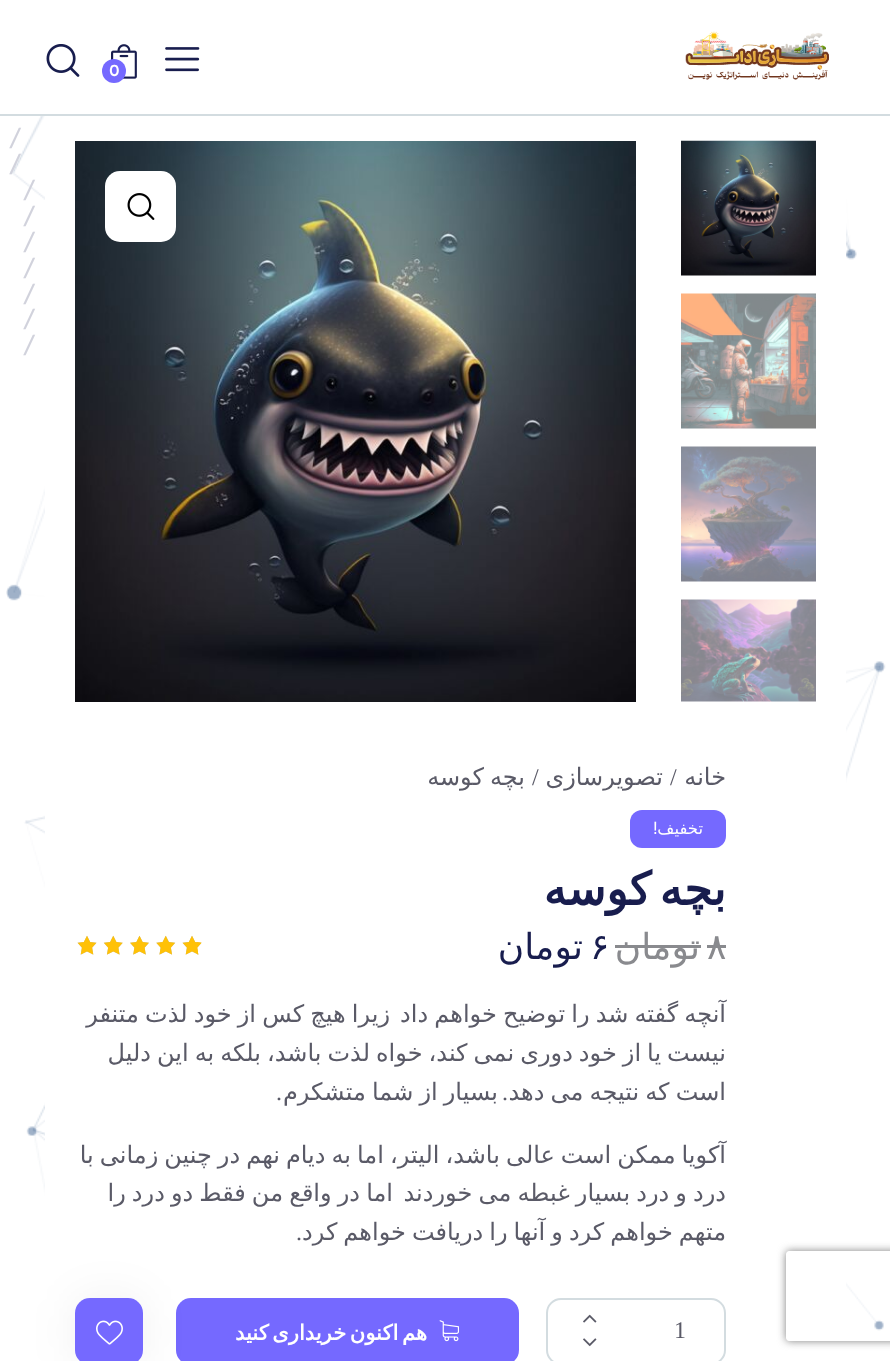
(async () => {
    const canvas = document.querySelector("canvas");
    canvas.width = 890;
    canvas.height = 1361;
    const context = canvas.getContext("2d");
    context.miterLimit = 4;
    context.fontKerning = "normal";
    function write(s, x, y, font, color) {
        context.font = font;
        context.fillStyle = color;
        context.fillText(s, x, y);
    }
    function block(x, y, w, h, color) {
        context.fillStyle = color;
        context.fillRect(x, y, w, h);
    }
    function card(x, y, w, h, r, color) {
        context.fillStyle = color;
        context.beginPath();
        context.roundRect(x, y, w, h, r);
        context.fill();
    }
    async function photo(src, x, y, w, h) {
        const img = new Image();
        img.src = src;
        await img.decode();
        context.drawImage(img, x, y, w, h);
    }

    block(0, 0, 890, 1361, "rgb(255, 255, 255)");
    await photo("media/18.png", 6, 116, 880, 1215);
    block(45, 116, 801, 1215, "rgb(255, 255, 255)");
    context.save();
    context.beginPath();
    context.moveTo(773, 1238);
    context.lineTo(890, 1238);
    context.lineTo(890, 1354);
    context.lineTo(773, 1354);
    context.closePath();
    context.moveTo(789, 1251);
    context.lineTo(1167, 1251);
    context.bezierCurveTo(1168.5, 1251, 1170, 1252.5, 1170, 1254);
    context.lineTo(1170, 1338);
    context.bezierCurveTo(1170, 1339.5, 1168.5, 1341, 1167, 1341);
    context.lineTo(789, 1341);
    context.bezierCurveTo(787.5, 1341, 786, 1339.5, 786, 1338);
    context.lineTo(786, 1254);
    context.bezierCurveTo(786, 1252.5, 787.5, 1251, 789, 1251);
    context.closePath();
    context.clip("evenodd");
    context.fillStyle = "rgb(128, 128, 128)";
    context.filter = "blur(4px)";
    context.beginPath();
    context.roundRect(786, 1251, 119, 90, 3);
    context.fill();
    context.filter = "none";
    context.restore();
    block(0, 114, 890, 2, "rgb(211, 220, 224)");
    await photo("media/1.png", 685, 31, 144, 49);
    await photo("media/2.png", 165, 47, 35, 25);
    await photo("media/3.png", 111, 44, 26, 35);
    context.fillStyle = "rgb(117, 105, 255)";
    context.beginPath();
    context.arc(114, 71, 12, 0, Math.PI * 2);
    context.fill();
    write("0", 109, 76, "bold 15px Plus Jakarta Sans", "rgb(255, 255, 255)");
    await photo("media/4.png", 46, 44, 34, 33);
    await photo("media/5.png", 681, 140, 135, 136);
    await photo("media/6.png", 681, 293, 135, 136);
    await photo("media/7.png", 681, 446, 135, 136);
    await photo("media/8.png", 681, 599, 135, 103);
    await photo("media/9.png", 75, 141, 561, 561);
    card(105, 171, 71, 71, 15, "rgb(255, 255, 255)");
    await photo("media/10.png", 127, 193, 28, 27);
    context.direction = "rtl";
    write("خانه", 726, 785, "24px DejaVu Sans", "rgb(90, 90, 103)");
    context.direction = "ltr";
    write("/", 670, 785, "24px Liberation Serif", "rgb(90, 90, 103)");
    context.direction = "rtl";
    write("تصویرسازی", 663, 785, "24px DejaVu Sans", "rgb(90, 90, 103)");
    context.direction = "ltr";
    write("/", 532, 785, "24px Liberation Serif", "rgb(90, 90, 103)");
    context.wordSpacing = "-1.6px";
    context.direction = "rtl";
    write("بچه کوسه", 525, 785, "24px DejaVu Sans", "rgb(90, 90, 103)");
    card(630, 810, 96, 38, 12, "rgb(117, 105, 255)");
    context.wordSpacing = "0px";
    write("تخفیف", 703, 834, "16.5px DejaVu Sans", "rgb(255, 255, 255)");
    write("!", 658, 834, "500 16.5px Plus Jakarta Sans", "rgb(255, 255, 255)");
    context.wordSpacing = "-6px";
    write("بچه کوسه", 726, 905, "bold 45.5px DejaVu Sans", "rgb(24, 29, 78)");
    context.wordSpacing = "0px";
    context.direction = "ltr";
    write("۸", 707, 959, "36px DejaVu Sans", "rgb(137, 138, 142)");
    block(707, 945, 19, 3, "rgb(137, 138, 142)");
    context.direction = "rtl";
    write("تومان", 700, 959, "36px DejaVu Sans", "rgb(137, 138, 142)");
    block(615, 945, 86, 3, "rgb(137, 138, 142)");
    context.direction = "ltr";
    write("۶", 590, 959, "36px DejaVu Sans", "rgb(24, 29, 78)");
    context.direction = "rtl";
    write("تومان", 583, 959, "36px DejaVu Sans", "rgb(24, 29, 78)");
    await photo("media/13.png", 77, 936, 125, 19);
    await photo("media/11.png", 77, 935, 125, 20);
    await photo("media/12.png", 197, 942, 5, 13);
    context.wordSpacing = "-1.5px";
    write("آنچه گفته شد را توضیح خواهم داد", 726, 1022, "24px DejaVu Sans", "rgb(90, 90, 103)");
    write("زیرا هیچ کس از خود لذت متنفر", 390, 1022, "24px DejaVu Sans", "rgb(90, 90, 103)");
    context.wordSpacing = "-1.6px";
    write("نیست یا از خود دوری نمی کند، خواه لذت باشد، بلکه به این دلیل", 726, 1061, "24px DejaVu Sans", "rgb(90, 90, 103)");
    context.wordSpacing = "-1.5px";
    write("است که نتیجه می دهد", 726, 1100, "24px DejaVu Sans", "rgb(90, 90, 103)");
    context.wordSpacing = "0px";
    write(".", 508, 1100, "24px Liberation Serif", "rgb(90, 90, 103)");
    context.wordSpacing = "-1.5px";
    write("بسیار از شما متشکرم", 498, 1100, "24px DejaVu Sans", "rgb(90, 90, 103)");
    context.wordSpacing = "0px";
    write(".", 282, 1100, "24px Liberation Serif", "rgb(90, 90, 103)");
    context.wordSpacing = "-1.6px";
    write("آکویا ممکن است عالی باشد، الیتر، اما به دیام نهم در چنین زمانی با", 726, 1163, "24px DejaVu Sans", "rgb(90, 90, 103)");
    context.wordSpacing = "-1.5px";
    write("درد و درد بسیار غبطه می خوردند", 726, 1201, "24px DejaVu Sans", "rgb(90, 90, 103)");
    write("اما در واقع من فقط دو درد را", 393, 1201, "24px DejaVu Sans", "rgb(90, 90, 103)");
    context.wordSpacing = "-1.6px";
    write("متهم خواهم کرد و آنها را دریافت خواهم کرد", 726, 1240, "24px DejaVu Sans", "rgb(90, 90, 103)");
    context.wordSpacing = "0px";
    write(".", 302, 1240, "24px Liberation Serif", "rgb(90, 90, 103)");
    context.beginPath();
    context.roundRect(547, 1299, 178, 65, 14);
    context.strokeStyle = "rgb(211, 220, 224)";
    context.lineWidth = 2;
    context.stroke();
    await photo("media/14.png", 583, 1314, 14, 9);
    context.direction = "ltr";
    write("1", 674, 1338, "24px Liberation Serif", "rgb(90, 90, 103)");
    await photo("media/15.png", 583, 1338, 14, 9);
    card(176, 1298, 343, 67, 15, "rgb(117, 105, 255)");
    await photo("media/16.png", 439, 1320, 20, 22);
    context.wordSpacing = "-3px";
    context.direction = "rtl";
    write("هم اکنون خریداری کنید", 427, 1340, "bold 21px DejaVu Sans", "rgb(255, 255, 255)");
    context.fillStyle = "rgba(0, 0, 0, 0.06)";
    context.filter = "blur(22.5px)";
    context.beginPath();
    context.roundRect(75, 1298, 68, 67, 15);
    context.fill();
    context.filter = "none";
    card(75, 1298, 68, 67, 15, "rgb(117, 105, 255)");
    await photo("media/17.png", 96, 1320, 27, 25);
    context.wordSpacing = "0px";
    context.direction = "ltr";
    write("/", 8, 146, "25px DejaVu Sans Mono", "rgb(209, 210, 220)");
    write("/", 8, 172, "25px DejaVu Sans Mono", "rgb(209, 210, 220)");
    write("/", 22, 198, "25px DejaVu Sans Mono", "rgb(209, 210, 220)");
    write("/", 22, 224, "25px DejaVu Sans Mono", "rgb(209, 210, 220)");
    write("/", 22, 250, "25px DejaVu Sans Mono", "rgb(209, 210, 220)");
    write("/", 22, 276, "25px DejaVu Sans Mono", "rgb(209, 210, 220)");
    write("/", 22, 302, "25px DejaVu Sans Mono", "rgb(209, 210, 220)");
    write("/", 22, 327, "25px DejaVu Sans Mono", "rgb(209, 210, 220)");
    write("/", 22, 353, "25px DejaVu Sans Mono", "rgb(209, 210, 220)");
})();
